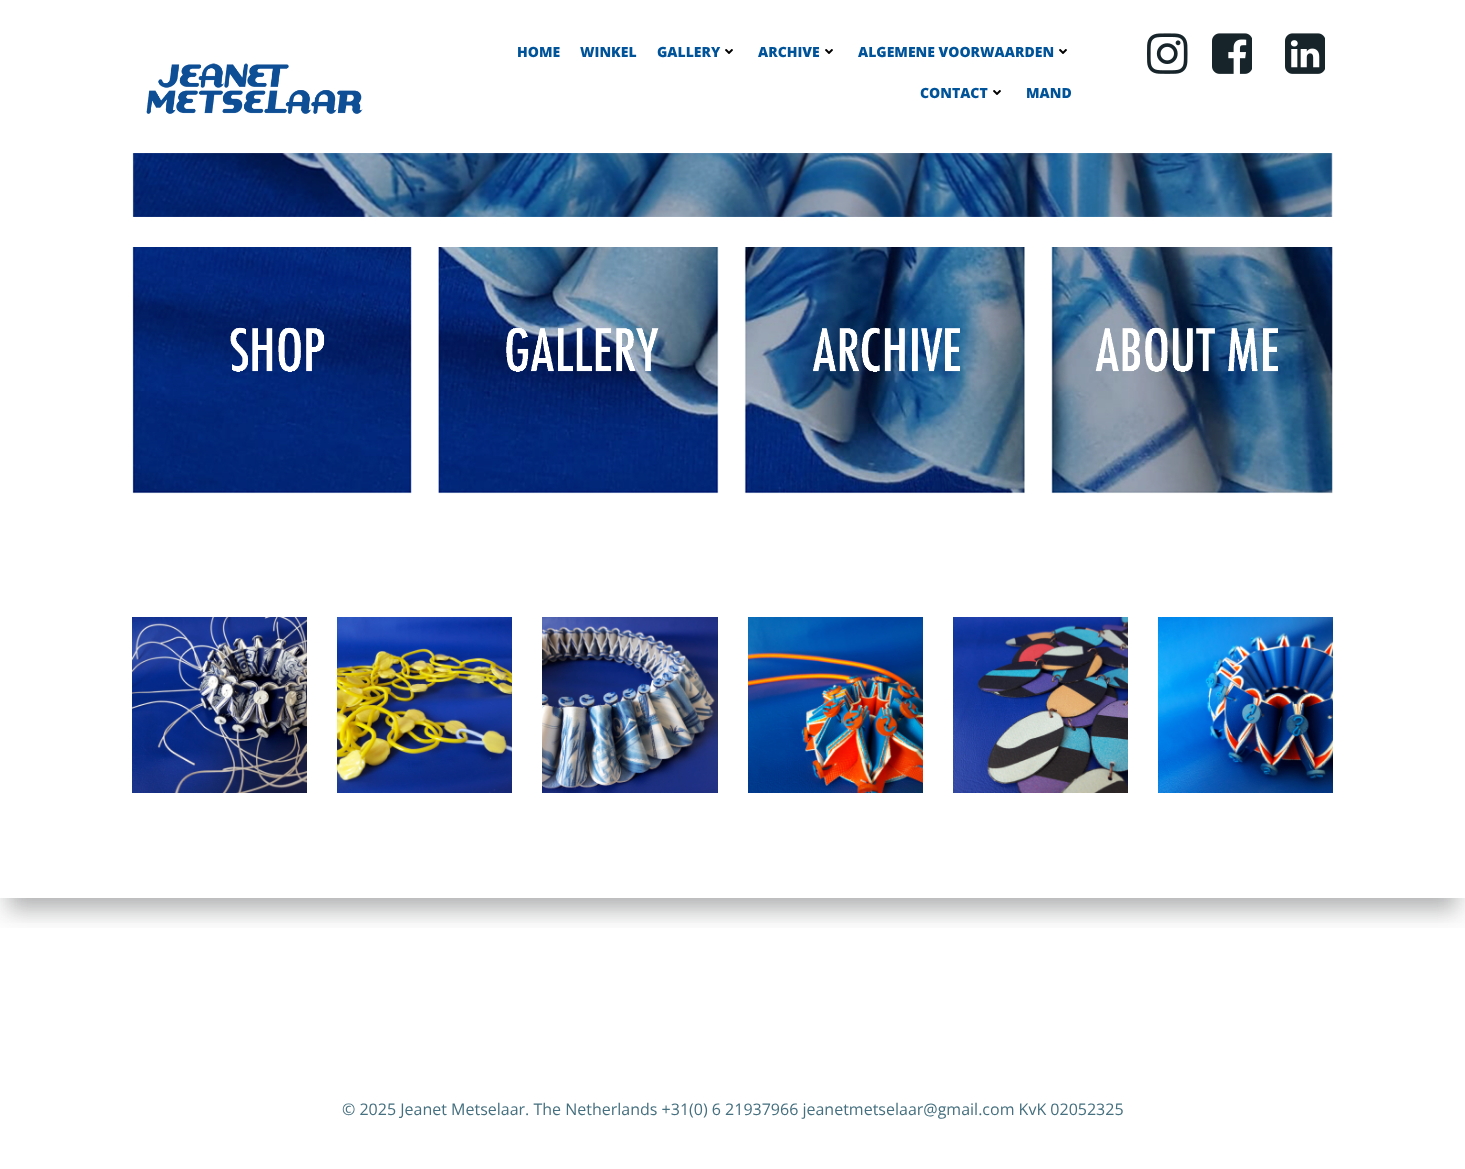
(async () => {
    const canvas = document.querySelector("canvas");
    canvas.width = 1465;
    canvas.height = 1169;
    const context = canvas.getContext("2d");
    context.miterLimit = 4;
    context.fontKerning = "normal";
    function write(s, x, y, font, color) {
        context.font = font;
        context.fillStyle = color;
        context.fillText(s, x, y);
    }
    function block(x, y, w, h, color) {
        context.fillStyle = color;
        context.fillRect(x, y, w, h);
    }
    async function photo(src, x, y, w, h) {
        const img = new Image();
        img.src = src;
        await img.decode();
        context.drawImage(img, x, y, w, h);
    }

    block(0, 0, 1465, 1169, "rgb(255, 255, 255)");
    context.save();
    context.beginPath();
    context.rect(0, 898, 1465, 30);
    context.clip();
    context.fillStyle = "rgba(0, 0, 0, 0.08)";
    context.filter = "blur(15px)";
    context.beginPath();
    context.rect(0, 20, 1465, 898);
    context.fill();
    context.filter = "none";
    context.restore();
    context.save();
    context.beginPath();
    context.rect(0, 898, 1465, 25);
    context.clip();
    context.fillStyle = "rgba(49, 52, 57, 0.3)";
    context.filter = "blur(10px)";
    context.beginPath();
    context.rect(10, 30, 1445, 878);
    context.fill();
    context.filter = "none";
    context.restore();
    await photo("media/1.png", 132, 247, 280, 247);
    await photo("media/2.png", 438, 247, 281, 247);
    await photo("media/3.png", 744, 247, 281, 247);
    await photo("media/4.png", 1051, 247, 282, 247);
    await photo("media/5.png", 132, 617, 175, 176);
    await photo("media/6.png", 337, 617, 175, 176);
    await photo("media/7.png", 542, 617, 176, 176);
    await photo("media/8.png", 748, 617, 175, 176);
    await photo("media/9.png", 953, 617, 175, 176);
    await photo("media/10.png", 1158, 617, 175, 176);
    await photo("media/11.png", 146, 63, 217, 51);
    write("HOME", 517, 57, "800 14px Open Sans", "rgb(0, 83, 153)");
    write("WINKEL", 580, 57, "800 14px Open Sans", "rgb(0, 83, 153)");
    write("GALLERY", 657, 57, "800 14px Open Sans", "rgb(0, 83, 153)");
    await photo("media/12.png", 725, 49, 8, 5);
    write("ARCHIVE", 758, 57, "800 14px Open Sans", "rgb(0, 83, 153)");
    await photo("media/12.png", 825, 49, 8, 5);
    write("ALGEMENE VOORWAARDEN", 858, 57, "800 14px Open Sans", "rgb(0, 83, 153)");
    await photo("media/12.png", 1059, 49, 8, 5);
    write("CONTACT", 920, 98, "800 14px Open Sans", "rgb(0, 83, 153)");
    await photo("media/12.png", 993, 90, 8, 5);
    write("MAND", 1026, 98, "800 14px Open Sans", "rgb(0, 83, 153)");
    await photo("media/13.png", 1147, 33, 41, 41);
    await photo("media/14.png", 1212, 33, 40, 41);
    await photo("media/15.png", 1285, 33, 40, 41);
    await photo("media/16.png", 132, 153, 1201, 64);
    write("© 2025 Jeanet Metselaar. The Netherlands +31(0) 6 21937966 jeanetmetselaar@gmail.com KvK 02052325", 342, 1115, "16px Open Sans", "rgb(70, 112, 127)");
})();
